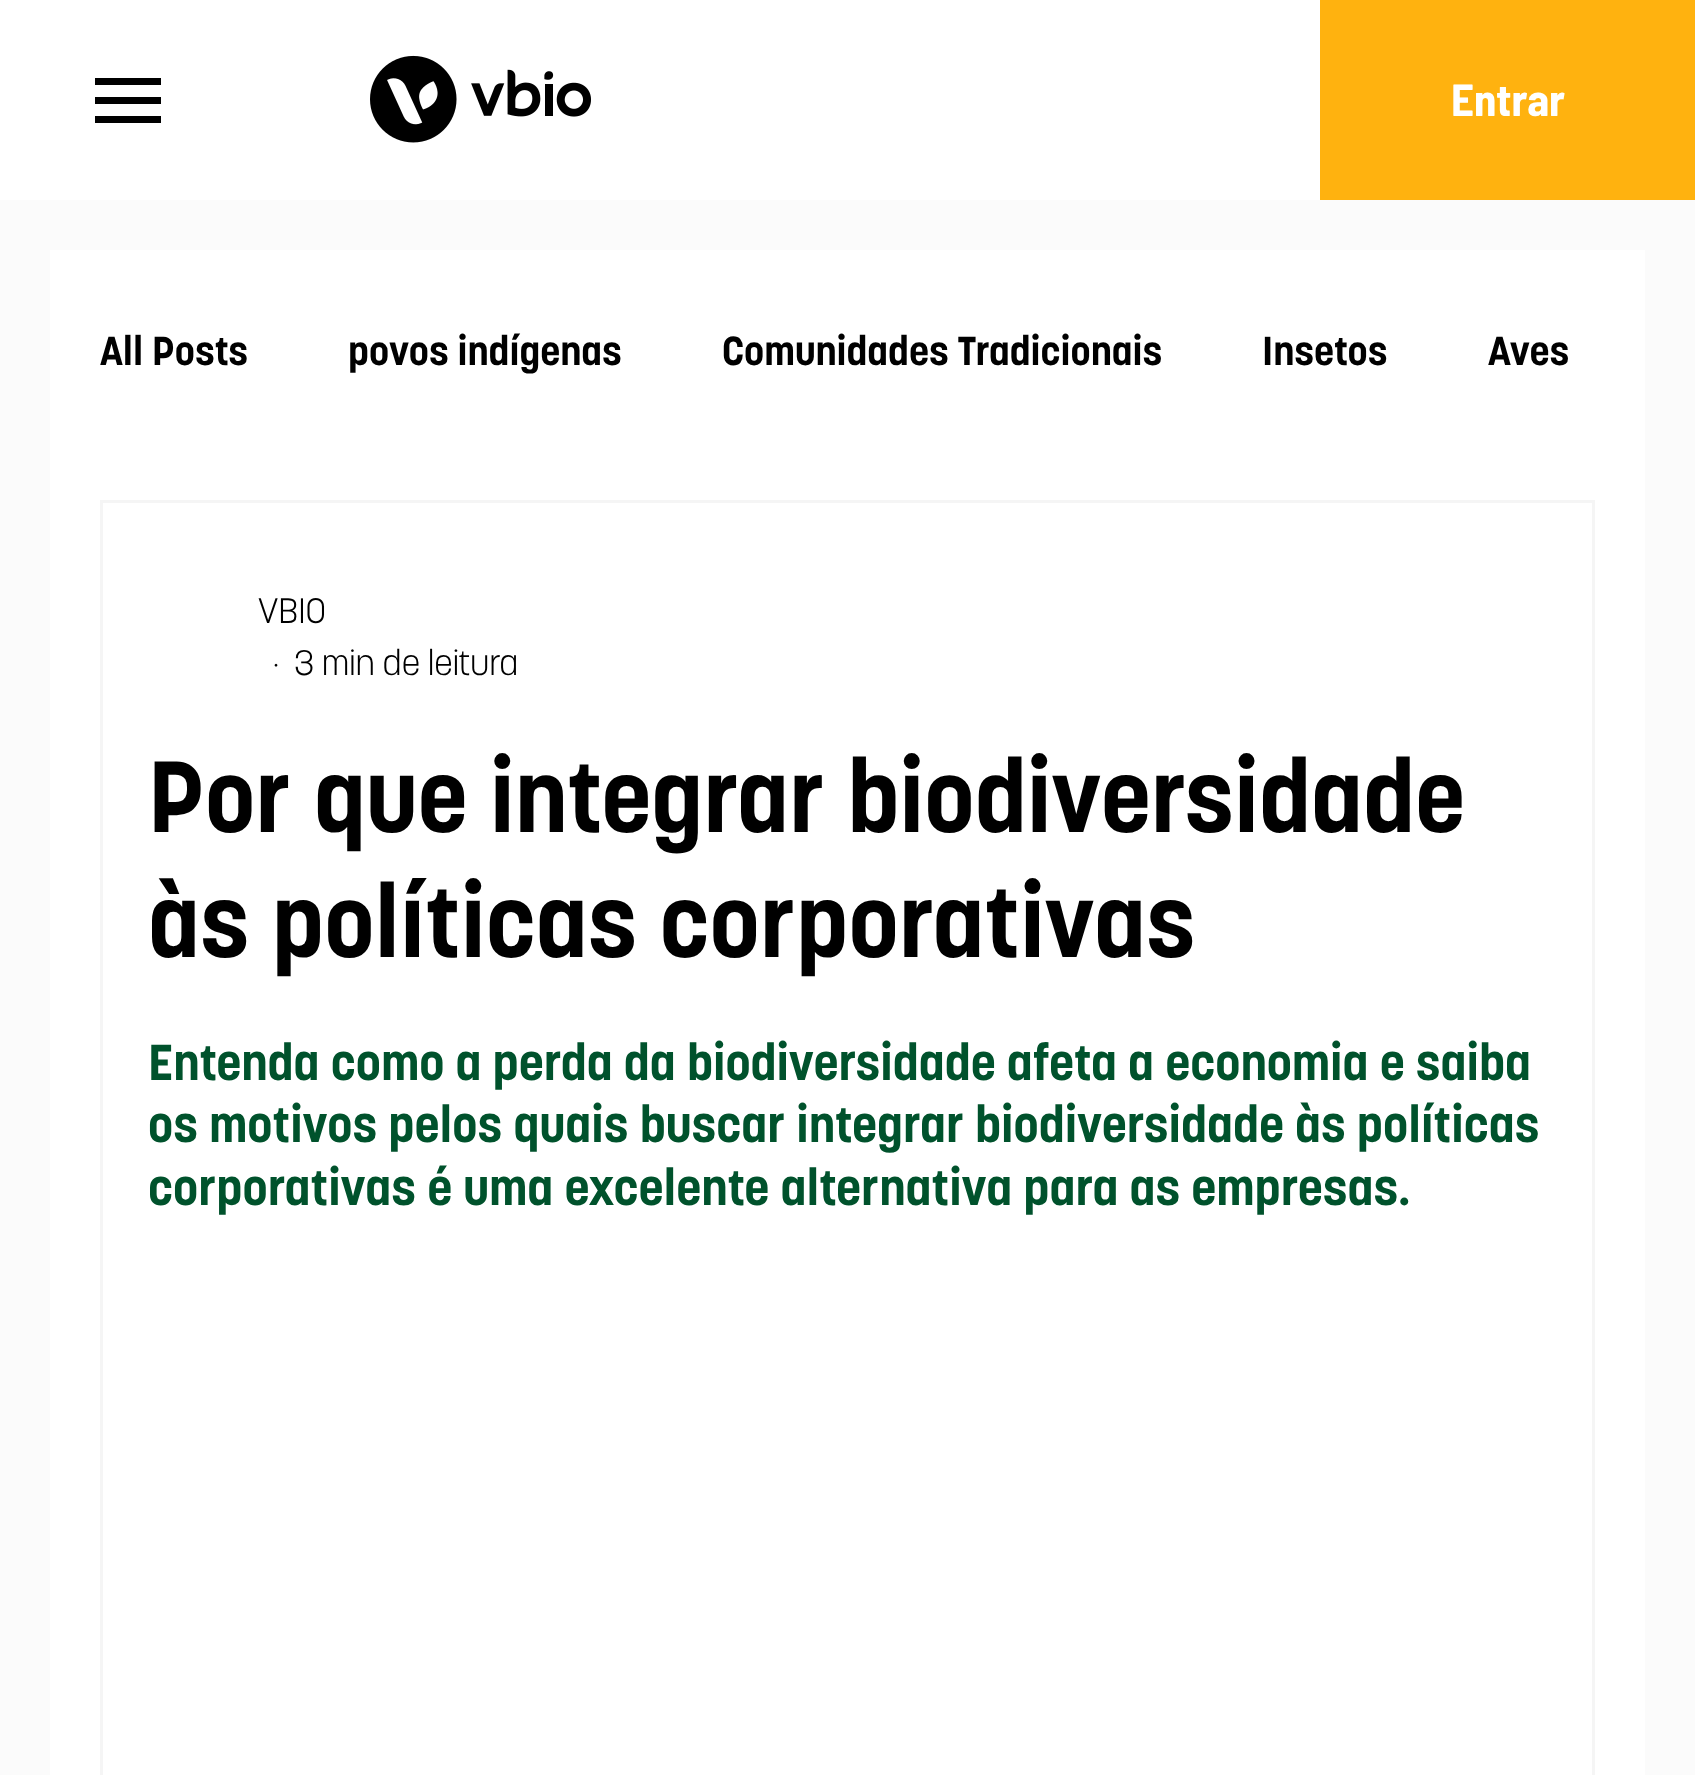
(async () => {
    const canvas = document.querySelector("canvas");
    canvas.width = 1695;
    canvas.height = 1775;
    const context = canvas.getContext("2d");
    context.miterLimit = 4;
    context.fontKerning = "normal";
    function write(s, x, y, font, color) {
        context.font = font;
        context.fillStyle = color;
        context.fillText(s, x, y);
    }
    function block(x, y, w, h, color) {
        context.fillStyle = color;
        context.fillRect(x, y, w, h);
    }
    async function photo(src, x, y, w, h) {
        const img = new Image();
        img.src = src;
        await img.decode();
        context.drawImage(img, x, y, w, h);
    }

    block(0, 0, 1695, 1775, "rgb(255, 255, 255)");
    block(95, 78, 66, 7, "rgb(0, 0, 0)");
    block(95, 97, 66, 7, "rgb(0, 0, 0)");
    block(95, 116, 66, 7, "rgb(0, 0, 0)");
    await photo("media/1.png", 370, 55, 221, 88);
    block(1320, 0, 375, 200, "rgb(255, 178, 15)");
    write("Entrar", 1451, 116, "bold 45px Barlow Semi Condensed", "rgb(255, 255, 255)");
    block(0, 200, 1695, 1575, "rgb(251, 251, 251)");
    block(50, 250, 1595, 1525, "rgb(255, 255, 255)");
    write("All Posts", 100, 365, "bold 40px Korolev", "rgb(0, 0, 0)");
    write("povos indígenas", 348, 365, "bold 40px Korolev", "rgb(0, 0, 0)");
    write("Comunidades Tradicionais", 722, 365, "bold 40px Korolev", "rgb(0, 0, 0)");
    write("Insetos", 1262, 365, "bold 40px Korolev", "rgb(0, 0, 0)");
    write("Aves", 1488, 365, "bold 40px Korolev", "rgb(0, 0, 0)");
    context.strokeStyle = "rgb(245, 245, 245)";
    context.lineWidth = 3;
    context.strokeRect(101.5, 501.5, 1492, 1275);
    write("VBIO", 258, 623, "300 35px Korolev", "rgb(0, 0, 0)");
    write("·", 273, 675, "300 35px Korolev", "rgb(0, 0, 0)");
    write("3 min de leitura", 294, 675, "300 35px Korolev", "rgb(0, 0, 0)");
    write("Por que integrar biodiversidade", 148, 832, "bold 100px Korolev", "rgb(0, 0, 0)");
    write("às políticas corporativas", 148, 957, "bold 100px Korolev", "rgb(0, 0, 0)");
    write("Entenda como a perda da biodiversidade afeta a economia e saiba", 148, 1080, "bold 50px Korolev", "rgb(0, 82, 44)");
    write("os motivos pelos quais buscar integrar biodiversidade às políticas", 148, 1142, "bold 50px Korolev", "rgb(0, 82, 44)");
    write("corporativas é uma excelente alternativa para as empresas.", 148, 1205, "bold 50px Korolev", "rgb(0, 82, 44)");
})();
